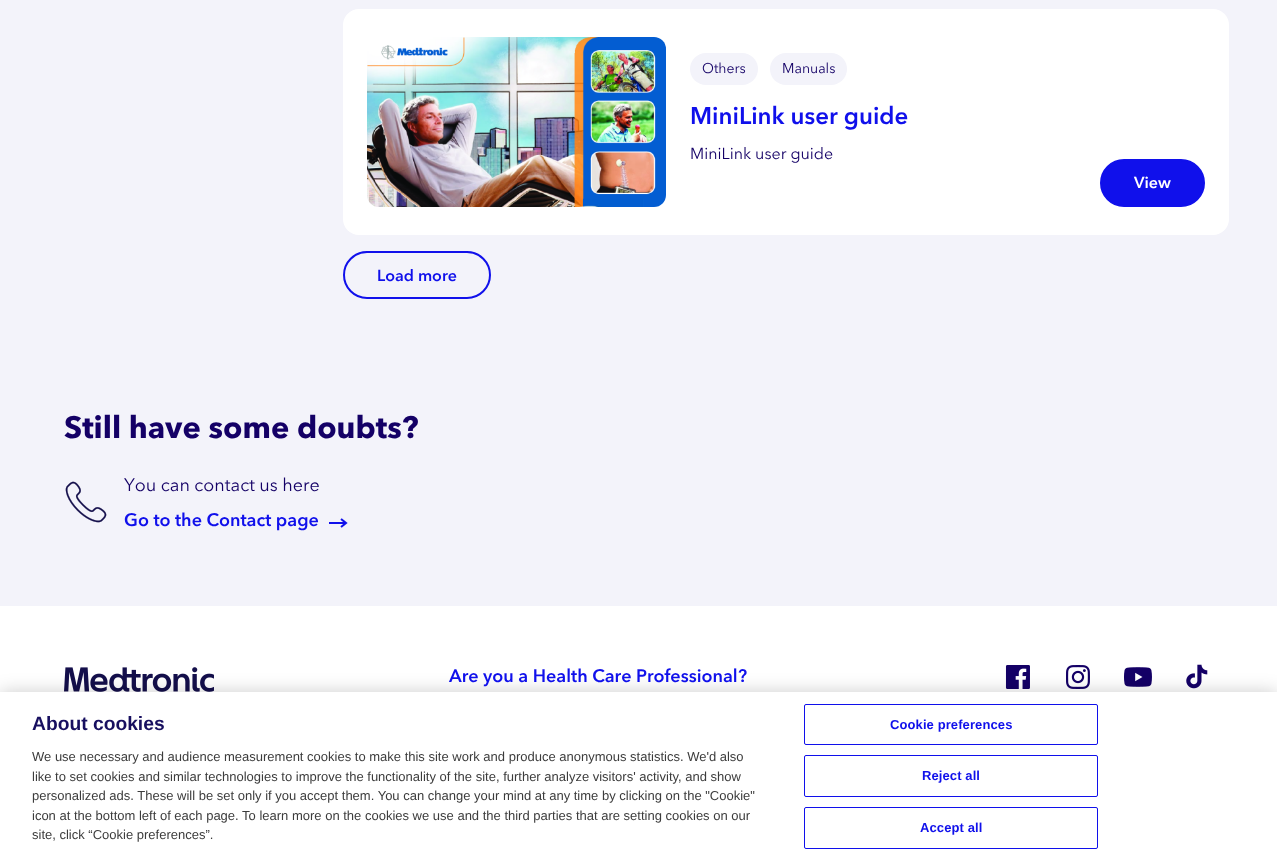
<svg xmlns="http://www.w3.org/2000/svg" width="1277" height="855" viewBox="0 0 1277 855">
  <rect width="100%" height="100%" fill="#fff"/>
  <path d="M0 0h1277v606H0z" fill="#f3f3fa"/>
  <rect x="343" y="9" width="886" height="226" rx="16" fill="#fff"/>
  <image x="367" y="37" width="299" height="170" href="img/1.png"/>
  <rect x="690" y="53" width="68" height="32" rx="16" fill="#f3f3fa"/>
  <rect x="770" y="53" width="77" height="32" rx="16" fill="#f3f3fa"/>
  <rect x="1101" y="160" width="103" height="46" rx="23" fill="#1010eb" stroke="#1010eb" stroke-width="2"/>
  <rect x="344" y="252" width="146" height="46" rx="23" fill="none" stroke="#1010eb" stroke-width="2"/>
  <image x="65" y="481" width="42" height="42" href="img/2.png"/>
  <image x="329" y="518" width="19" height="10" href="img/3.png"/>
  <image x="64" y="667" width="150" height="25" href="img/4.png"/>
  <image x="1005" y="665" width="25" height="24" href="img/5.png"/>
  <image x="1066" y="665" width="24" height="24" href="img/6.png"/>
  <image x="1124" y="667" width="28" height="20" href="img/7.png"/>
  <image x="1186" y="664" width="22" height="25" href="img/8.png"/>
  <path d="M0 692h1277v163H0z" fill="#00000033" filter="blur(9px)"/>
  <path d="M0 692h1277v163H0z" fill="#fff"/>
  <rect x="804.5" y="704.5" width="293" height="40" rx="1.5" fill="none" stroke="#1010eb"/>
  <rect x="804.5" y="755.5" width="293" height="41" rx="1.5" fill="none" stroke="#1010eb"/>
  <rect x="804.5" y="807.5" width="293" height="41" rx="1.5" fill="none" stroke="#1010eb"/>
  <g font-family="'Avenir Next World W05'" font-size="14" fill="#140066">
    <text x="702" y="73">Others</text>
    <text x="782" y="73">Manuals</text>
  </g>
  <text x="690" y="124" font-family="'Avenir Next World W05'" font-size="24" font-weight="600" fill="#1010eb">MiniLink user guide</text>
  <text x="690" y="159" font-family="'Avenir Next World W05'" font-size="16" fill="#140066">MiniLink user guide</text>
  <text x="1134" y="188" font-family="'Avenir Next World W05'" font-size="16" font-weight="600" fill="#fff">View</text>
  <text x="377" y="281" font-family="'Avenir Next World W05'" font-size="16" font-weight="600" fill="#1010eb">Load more</text>
  <text x="64" y="438" font-family="'Avenir Next World W05'" font-size="30.75" font-weight="bold" fill="#140066">Still have some doubts?</text>
  <text x="124" y="491" font-family="'Avenir Next World W05'" font-size="18" fill="#140066">You can contact us here</text>
  <g font-family="'Avenir Next World W05'" font-size="18" font-weight="600" fill="#1010eb">
    <text x="124" y="526">Go to the Contact page</text>
    <text x="449" y="682">Are you a Health Care Professional?</text>
  </g>
  <text x="32" y="730" font-family="Liberation Sans" font-size="19.25" font-weight="bold" fill="#170f5f">About cookies</text>
  <g font-family="Liberation Sans" font-size="13" fill="#3c3c3c">
    <text x="32" y="761">We use necessary and audience measurement cookies to make this site work and produce anonymous statistics. We'd also</text>
    <text x="32" y="781">like to set cookies and similar technologies to improve the functionality of the site, further analyze visitors' activity, and show</text>
    <text x="32" y="800">personalized ads. These will be set only if you accept them. You can change your mind at any time by clicking on the "Cookie"</text>
    <text x="32" y="820">icon at the bottom left of each page. To learn more on the cookies we use and the third parties that are setting cookies on our</text>
    <text x="32" y="839">site, click “Cookie preferences”.</text>
  </g>
  <g font-family="Liberation Sans" font-size="13" font-weight="bold" letter-spacing="0.1" fill="#1010eb">
    <text x="890" y="729">Cookie preferences</text>
    <text x="922" y="780">Reject all</text>
    <text x="920" y="832">Accept all</text>
  </g>
</svg>
